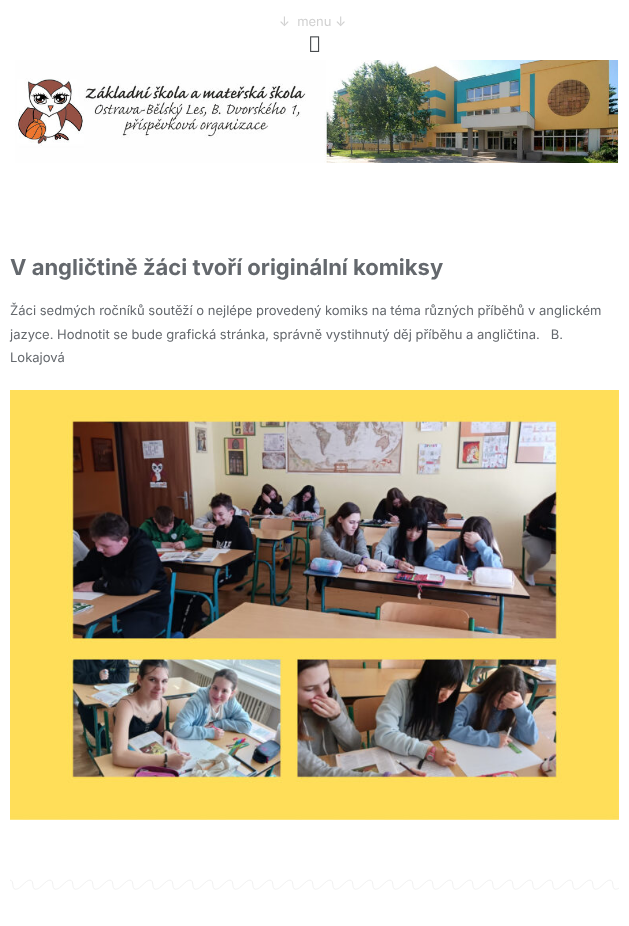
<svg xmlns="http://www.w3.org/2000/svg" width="629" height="926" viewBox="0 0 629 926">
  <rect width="100%" height="100%" fill="#fff"/>
  <image x="310" y="36" width="10" height="16" href="img/1.png"/>
  <image x="15" y="60" width="604" height="103" href="img/2.png"/>
  <image x="10" y="390" width="609" height="430" href="img/3.png"/>
  <image x="10" y="879" width="609" height="11" href="img/4.png"/>
  <text x="279" y="26" font-family="Inter" font-size="13" fill="#d1d1d1" xml:space="preserve">↓  menu ↓</text>
  <text x="10" y="275" font-family="Inter" font-size="22" font-weight="bold" fill="#64686d">V angličtině žáci tvoří originální komiksy</text>
  <g font-family="Inter" font-size="13" fill="#64686d">
    <text x="10" y="315">Žáci sedmých ročníků soutěží o nejlépe provedený komiks na téma různých příběhů v anglickém</text>
    <text x="10" y="339" xml:space="preserve">jazyce. Hodnotit se bude grafická stránka, správně vystihnutý děj příběhu a angličtina.   B.</text>
    <text x="10" y="362">Lokajová</text>
  </g>
</svg>
